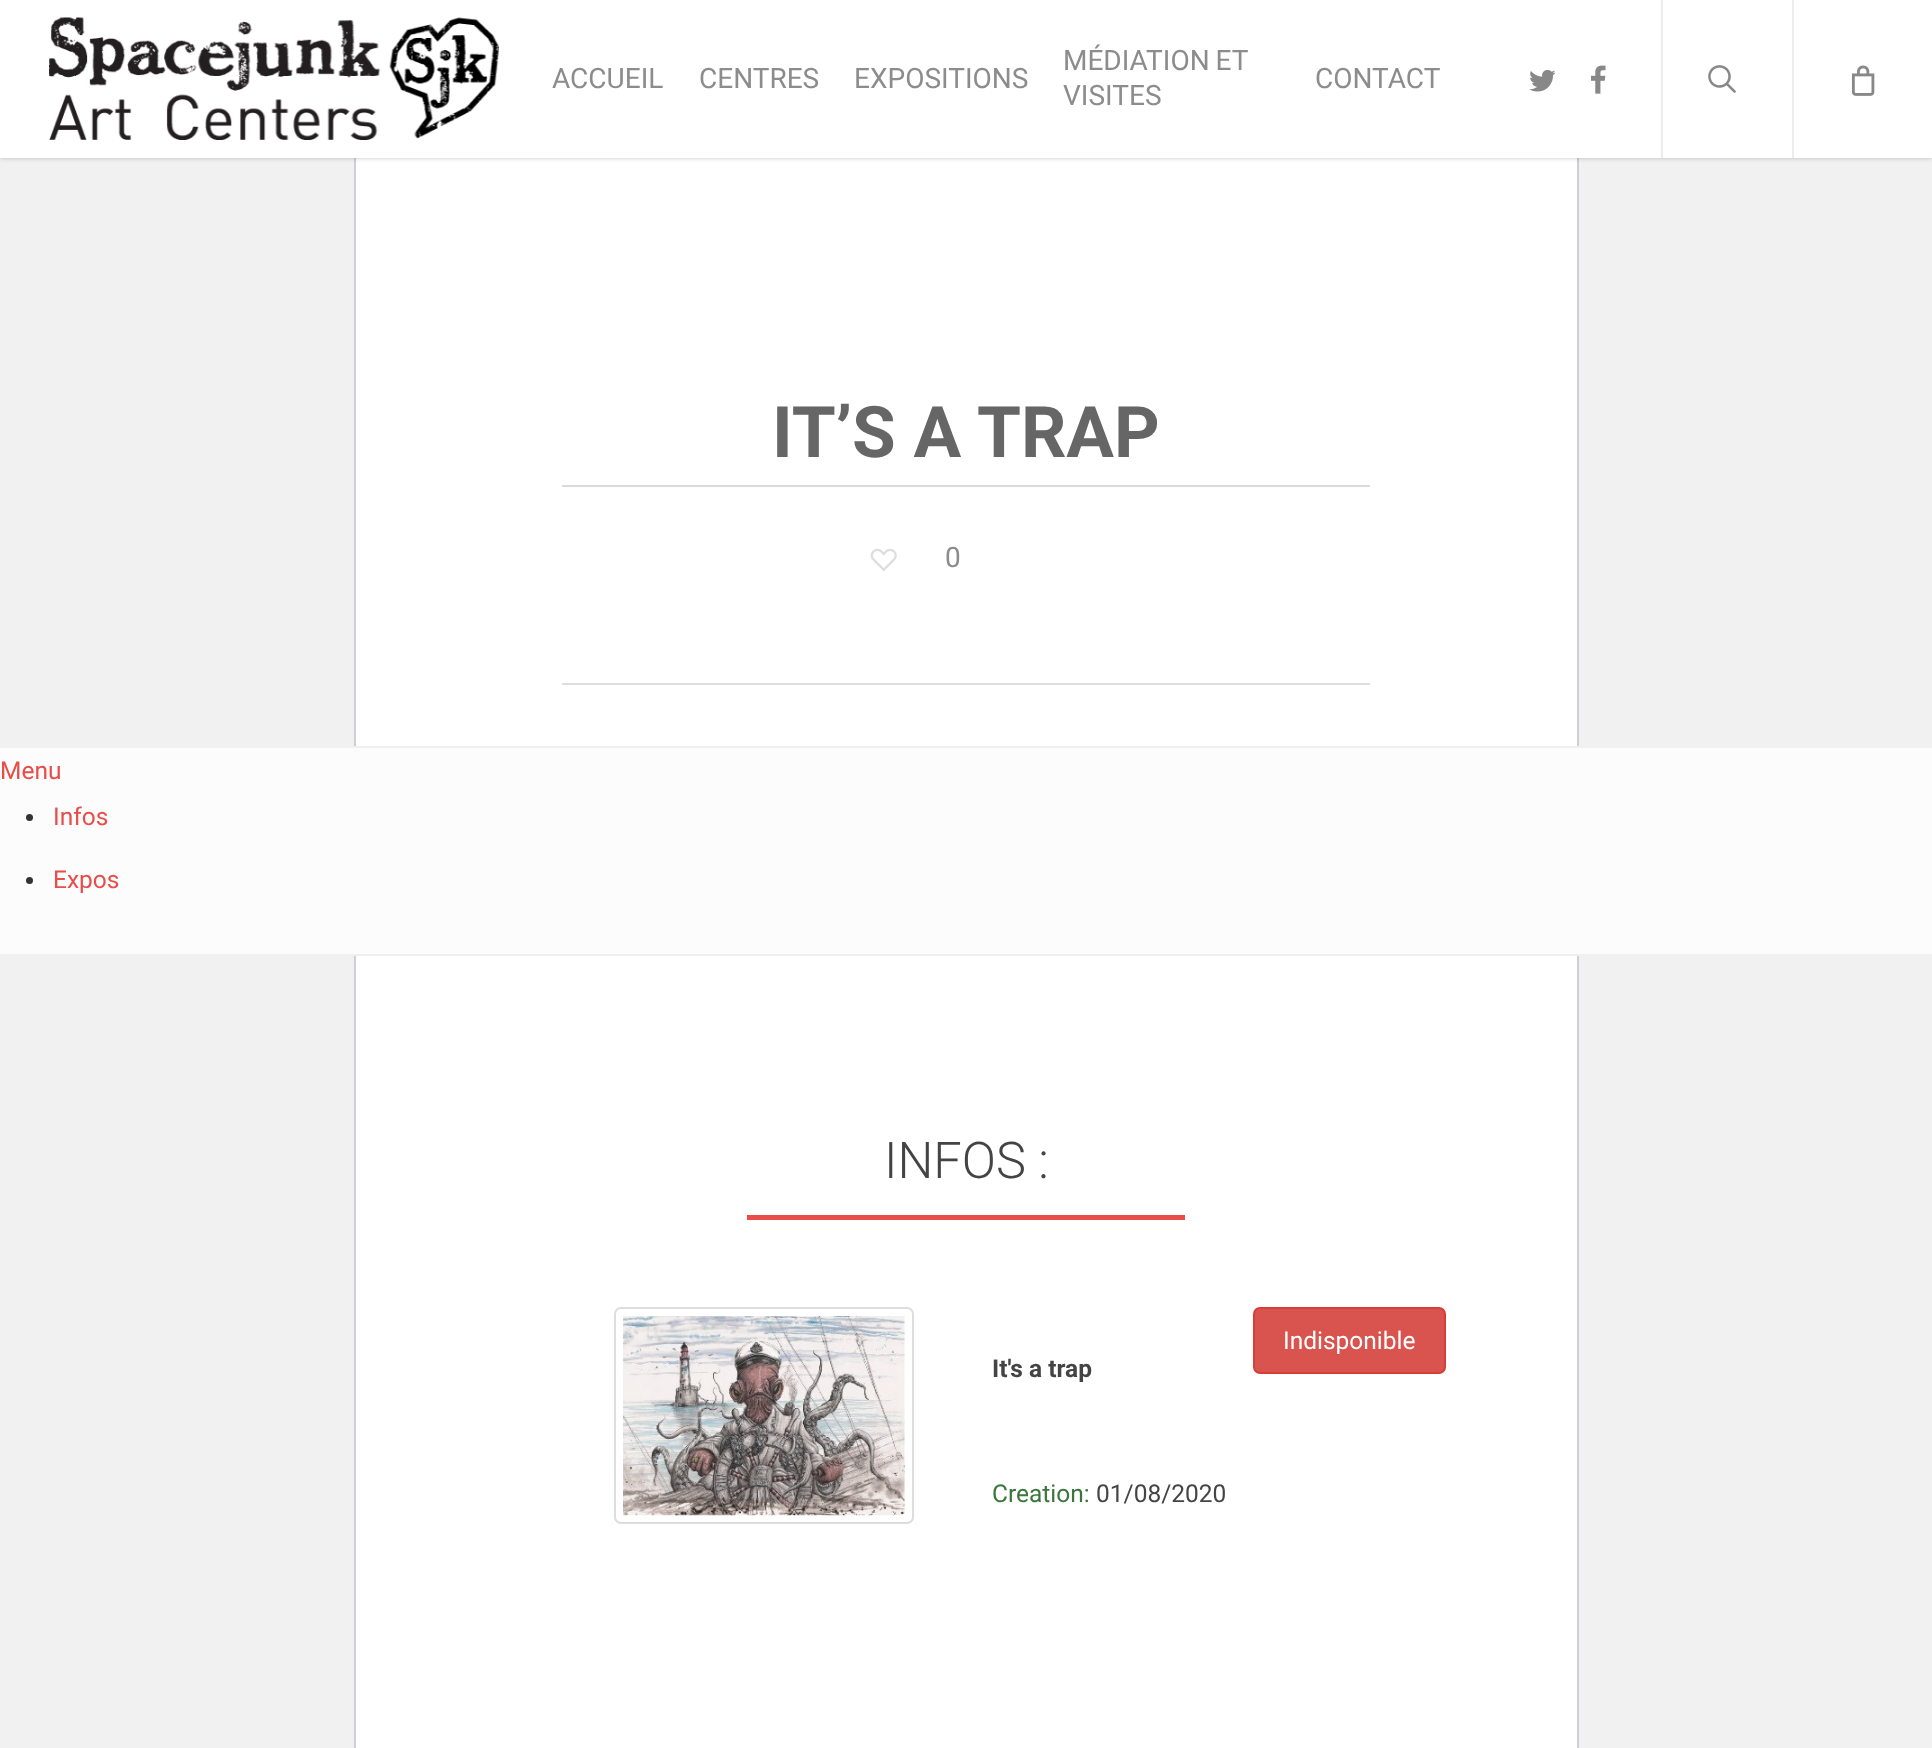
<svg xmlns="http://www.w3.org/2000/svg" width="1932" height="1748" viewBox="0 0 1932 1748">
  <rect width="100%" height="100%" fill="#f1f1f1"/>
  <path d="M356 158h1221v1590H356z" fill="#fff"/>
  <path d="M355 89h1223v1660H355z" fill="none" stroke="#ccd0d4" stroke-width="2"/>
  <path d="M0 0h1932v158H0z" fill="#00000038" filter="blur(2.5px)"/>
  <path d="M0 0h1932v158H0z" fill="#fff"/>
  <image x="49" y="17" width="450" height="123" href="img/1.png"/>
  <image x="1529" y="69" width="27" height="23" href="img/2.png"/>
  <image x="1591" y="65" width="15" height="29" href="img/3.png"/>
  <path d="M1661 0h2v158H1661z" fill="#ededed"/>
  <image x="1708" y="65" width="28" height="28" href="img/4.png"/>
  <path d="M1792 0h2v158H1792z" fill="#ededed"/>
  <image x="1851" y="65" width="24" height="31" href="img/5.png"/>
  <path d="M562 683h808v2H562z" fill="#ddd"/>
  <path d="M562 485h808v2H562z" fill="#dadada"/>
  <image x="870" y="548" width="27" height="24" href="img/6.png"/>
  <path d="M0 748h1932v206H0z" fill="#fcfcfc"/>
  <path d="M354 746h1225v2H354z" fill="#efefef"/>
  <path d="M354 954h1225v2H354z" fill="#efefef"/>
  <circle cx="29.5" cy="817.5" r="3.5" fill="#333"/>
  <circle cx="29.5" cy="880.5" r="3.5" fill="#333"/>
  <path d="M747 1215h438v5H747z" fill="#e84d49"/>
  <rect x="615" y="1308" width="298" height="215" rx="6" fill="none" stroke="#ddd" stroke-width="2"/>
  <image x="623" y="1316" width="282" height="200" href="img/7.png"/>
  <rect x="1254" y="1308" width="191" height="65" rx="6" fill="#d9534f" stroke="#d43f3a" stroke-width="2"/>
  <g font-family="Roboto" font-size="28" fill="#8c8c8c">
    <text x="552" y="88">ACCUEIL</text>
    <text x="699" y="88">CENTRES</text>
    <text x="854" y="88">EXPOSITIONS</text>
    <text x="1063" y="70" word-spacing="-1">MÉDIATION ET</text>
    <text x="1063" y="105">VISITES</text>
    <text x="1315" y="88">CONTACT</text>
  </g>
  <text x="772" y="457" font-family="Roboto" font-size="71" font-weight="bold" fill="#666">IT’S A TRAP</text>
  <text x="945" y="567" font-family="Roboto" font-size="28" fill="#8c8c8c">0</text>
  <g font-family="Roboto" font-size="24.5" fill="#e84d49">
    <text x="0" y="779">Menu</text>
    <text x="53" y="825">Infos</text>
    <text x="53" y="888">Expos</text>
  </g>
  <text x="884" y="1178" font-family="Roboto" font-size="50.5" font-weight="300" fill="#444">INFOS :</text>
  <text x="1283" y="1349" font-family="Roboto" font-size="24.5" fill="#fff">Indisponible</text>
  <text x="992" y="1377" font-family="Roboto" font-size="24.5" font-weight="bold" fill="#444">It's a trap</text>
  <text x="992" y="1502" font-family="Roboto" font-size="24.5" fill="#3c763d">Creation:</text>
  <text x="1096" y="1502" font-family="Roboto" font-size="24.5" fill="#444">01/08/2020</text>
</svg>
